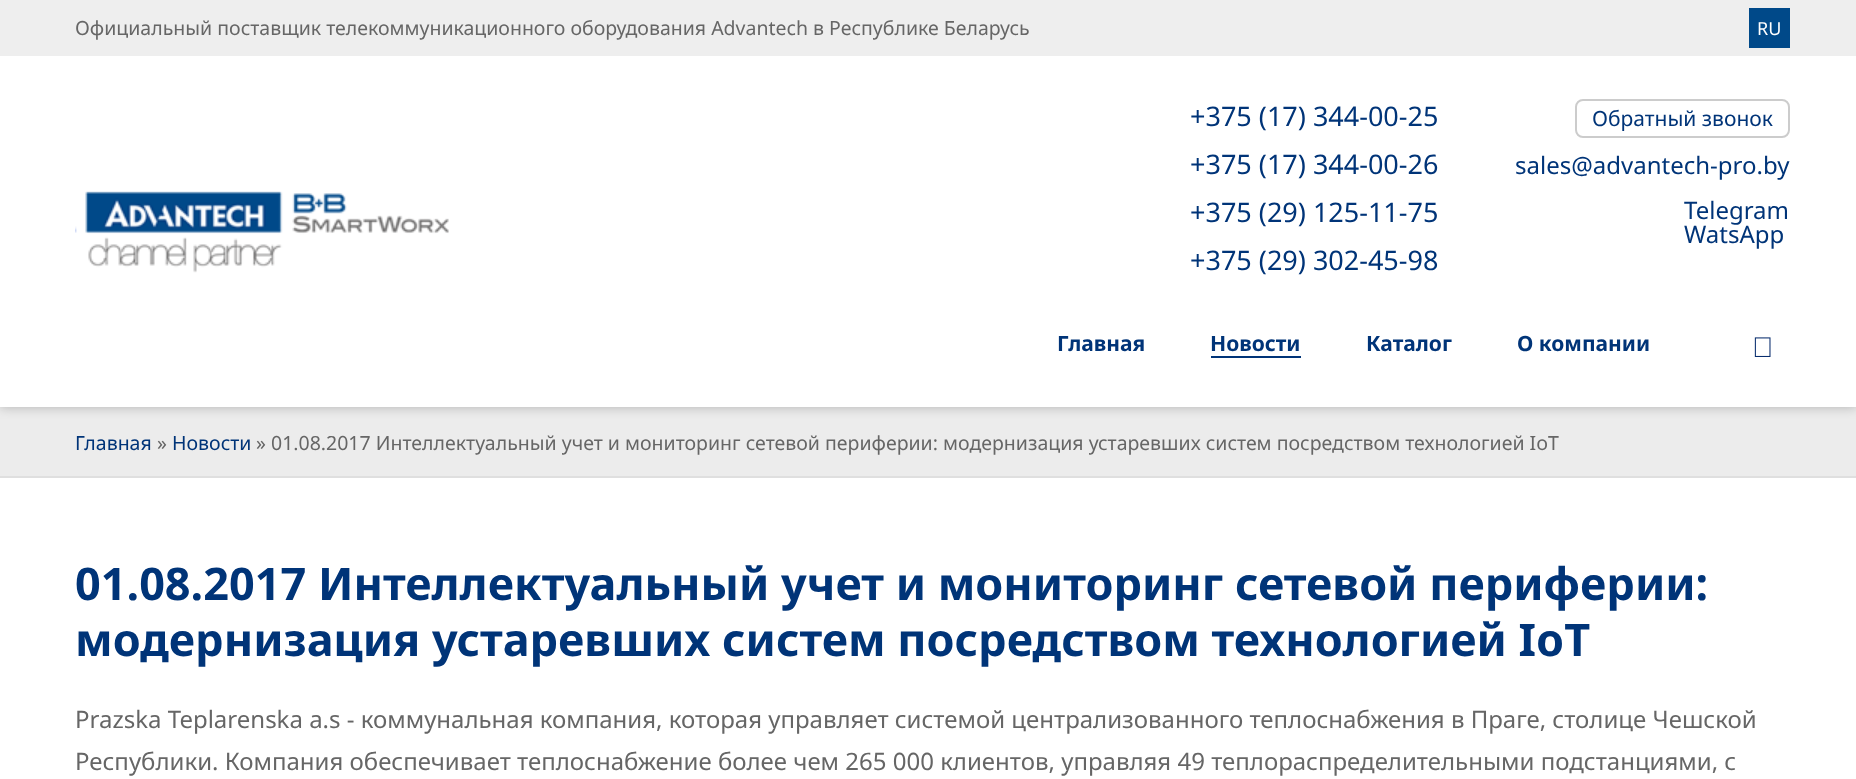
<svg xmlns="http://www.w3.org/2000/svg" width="1856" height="779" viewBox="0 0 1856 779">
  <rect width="100%" height="100%" fill="#fff"/>
  <path d="M0 407h1856v69H0z" fill="#ececec"/>
  <path d="M0 0h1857v407H0z" fill="#00000040" filter="blur(6px)"/>
  <path d="M0 56h1856v351H0z" fill="#fff"/>
  <path d="M0 0h1856v56H0z" fill="#eee"/>
  <path d="M1749 8h41v40H1749z" fill="#004989"/>
  <image x="75" y="191" width="374" height="82" href="img/1.png"/>
  <rect x="1576" y="100" width="213" height="37" rx="7" fill="none" stroke="#ccc" stroke-width="2"/>
  <path d="M1211 356h90v2H1211z" fill="#003478"/>
  <image x="1754" y="337" width="17" height="20" href="img/2.png"/>
  <path d="M0 476h1856v2H0z" fill="#dfdfdf"/>
  <text x="75" y="35" font-family="Noto Sans" font-size="19.5" fill="#666">Официальный поставщик телекоммуникационного оборудования Advantech в Республике Беларусь</text>
  <text x="1757" y="35" font-family="Noto Sans" font-size="18" fill="#fff">RU</text>
  <g font-family="Noto Sans" font-size="27" fill="#003478">
    <text x="1190" y="126">+375 (17) 344-00-25</text>
    <text x="1190" y="174">+375 (17) 344-00-26</text>
    <text x="1190" y="222">+375 (29) 125-11-75</text>
    <text x="1190" y="270">+375 (29) 302-45-98</text>
  </g>
  <text x="1592" y="126" font-family="Noto Sans" font-size="21" fill="#003478">Обратный звонок</text>
  <g font-family="Noto Sans" font-size="24" fill="#003478">
    <text x="1515" y="174">sales@advantech-pro.by</text>
    <text x="1684" y="219">Telegram</text>
    <text x="1684" y="243">WatsApp</text>
  </g>
  <g font-family="Noto Sans" font-size="21" font-weight="bold" fill="#003478">
    <text x="1057" y="351">Главная</text>
    <text x="1210" y="351">Новости</text>
    <text x="1366" y="351">Каталог</text>
    <text x="1517" y="351">О компании</text>
  </g>
  <text x="75" y="450" font-family="Noto Sans" font-size="19.5" fill="#003478">Главная</text>
  <text x="157" y="450" font-family="Noto Sans" font-size="19.5" fill="#666">»</text>
  <text x="172" y="450" font-family="Noto Sans" font-size="19.5" fill="#003478">Новости</text>
  <text x="256" y="450" font-family="Noto Sans" font-size="19.5" fill="#666">» 01.08.2017 Интеллектуальный учет и мониторинг сетевой периферии: модернизация устаревших систем посредством технологией IoT</text>
  <g font-family="Noto Sans" font-size="45" font-weight="bold" fill="#003478">
    <text x="75" y="600">01.08.2017 Интеллектуальный учет и мониторинг сетевой периферии:</text>
    <text x="75" y="656">модернизация устаревших систем посредством технологией IoT</text>
  </g>
  <g font-family="Noto Sans" font-size="24" fill="#666">
    <text x="75" y="728">Prazska Teplarenska a.s - коммунальная компания, которая управляет системой централизованного теплоснабжения в Праге, столице Чешской</text>
    <text x="75" y="770">Республики. Компания обеспечивает теплоснабжение более чем 265 000 клиентов, управляя 49 теплораспределительными подстанциями, с</text>
  </g>
</svg>
